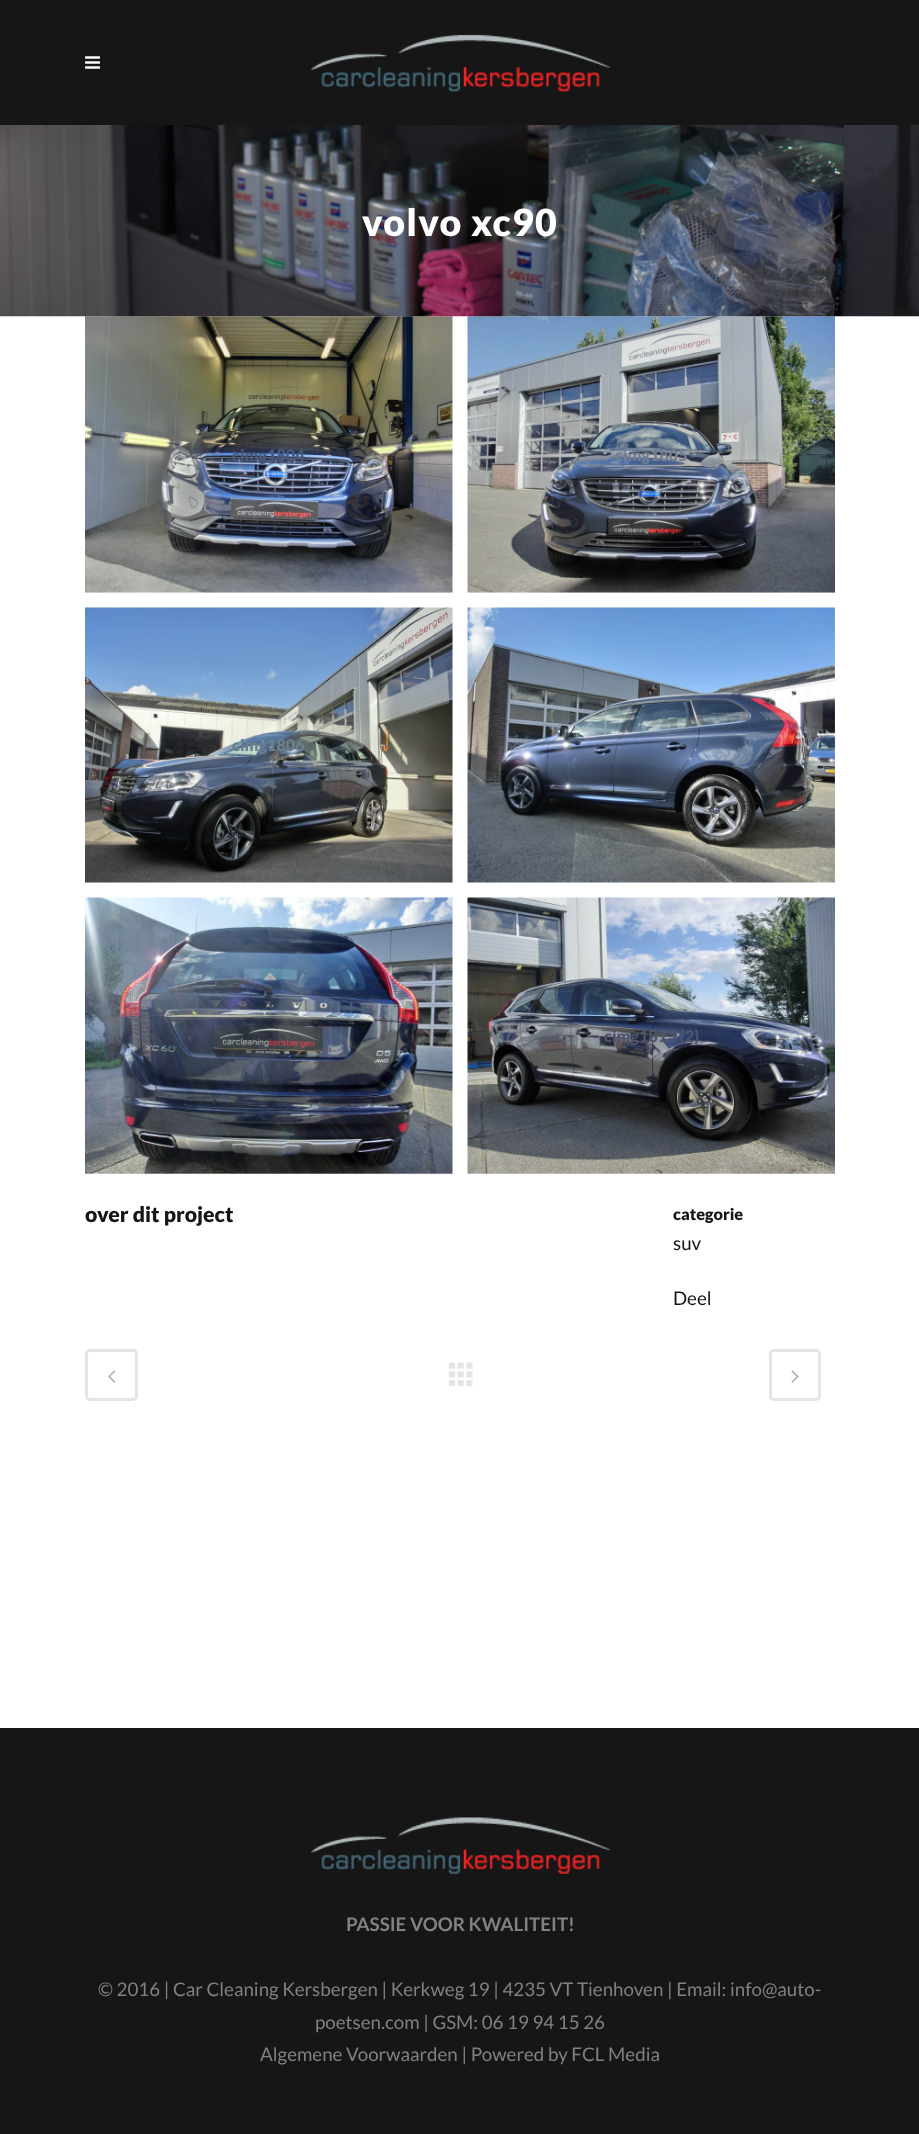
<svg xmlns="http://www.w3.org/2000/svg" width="919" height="2134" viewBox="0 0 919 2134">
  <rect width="100%" height="100%" fill="#fff"/>
  <path d="M0 0h919v125H0z" fill="#161616"/>
  <image x="85" y="56" width="15" height="13" href="img/1.png"/>
  <image x="311" y="34" width="299" height="58" href="img/2.png"/>
  <image x="85" y="316" width="368" height="277" href="img/4.png"/>
  <image x="467" y="316" width="368" height="277" href="img/5.png"/>
  <image x="0" y="125" width="919" height="192" href="img/3.png"/>
  <image x="85" y="607" width="368" height="276" href="img/6.png"/>
  <image x="467" y="607" width="368" height="276" href="img/7.png"/>
  <image x="85" y="897" width="368" height="277" href="img/8.png"/>
  <image x="467" y="897" width="368" height="277" href="img/9.png"/>
  <rect x="86.5" y="1350.5" width="50" height="49" rx="3.5" fill="none" stroke="#e5e5e5" stroke-width="3"/>
  <image x="108" y="1370" width="8" height="13" href="img/10.png"/>
  <image x="448" y="1362" width="25" height="25" href="img/11.png"/>
  <rect x="770.5" y="1350.5" width="49" height="49" rx="3.5" fill="none" stroke="#e5e5e5" stroke-width="3"/>
  <image x="791" y="1370" width="8" height="13" href="img/12.png"/>
  <path d="M0 1728h919v406H0z" fill="#161616"/>
  <image x="311" y="1817" width="299" height="57" href="img/13.png"/>
  <text x="362" y="236" font-family="Lato" font-size="37.5" font-weight="900" letter-spacing="1.25" fill="#fff">volvo xc90</text>
  <text x="232" y="461" font-family="Lato" font-size="16.25" font-weight="900" fill="#47597d">cimg1804</text>
  <text x="615" y="461" font-family="Lato" font-size="16.25" font-weight="900" fill="#727e92">cimg1805</text>
  <text x="232" y="751" font-family="Lato" font-size="16.25" font-weight="900" fill="#6b7f8d">cimg1806</text>
  <text x="604" y="1042" font-family="Lato" font-size="16.25" font-weight="900" fill="#4e556a">cimg1813 (2)</text>
  <text x="85" y="1222" font-family="Lato" font-size="21.25" font-weight="900" fill="#161616">over dit project</text>
  <text x="673" y="1220" font-family="Lato" font-size="16.25" font-weight="900" fill="#161616">categorie</text>
  <g font-family="Lato" font-size="18.75" fill="#161616">
    <text x="673" y="1250">suv</text>
    <text x="673" y="1305">Deel</text>
  </g>
  <text x="346" y="1931" font-family="Lato" font-size="18.75" font-weight="bold" fill="#818181">PASSIE VOOR KWALITEIT!</text>
  <g font-family="Lato" font-size="18.75" fill="#818181">
    <text x="98" y="1996">© 2016 | Car Cleaning Kersbergen | Kerkweg 19 | 4235 VT Tienhoven | Email: info@auto-</text>
    <text x="315" y="2029">poetsen.com | GSM: 06 19 94 15 26</text>
    <text x="260" y="2061">Algemene Voorwaarden | Powered by FCL Media</text>
  </g>
</svg>
